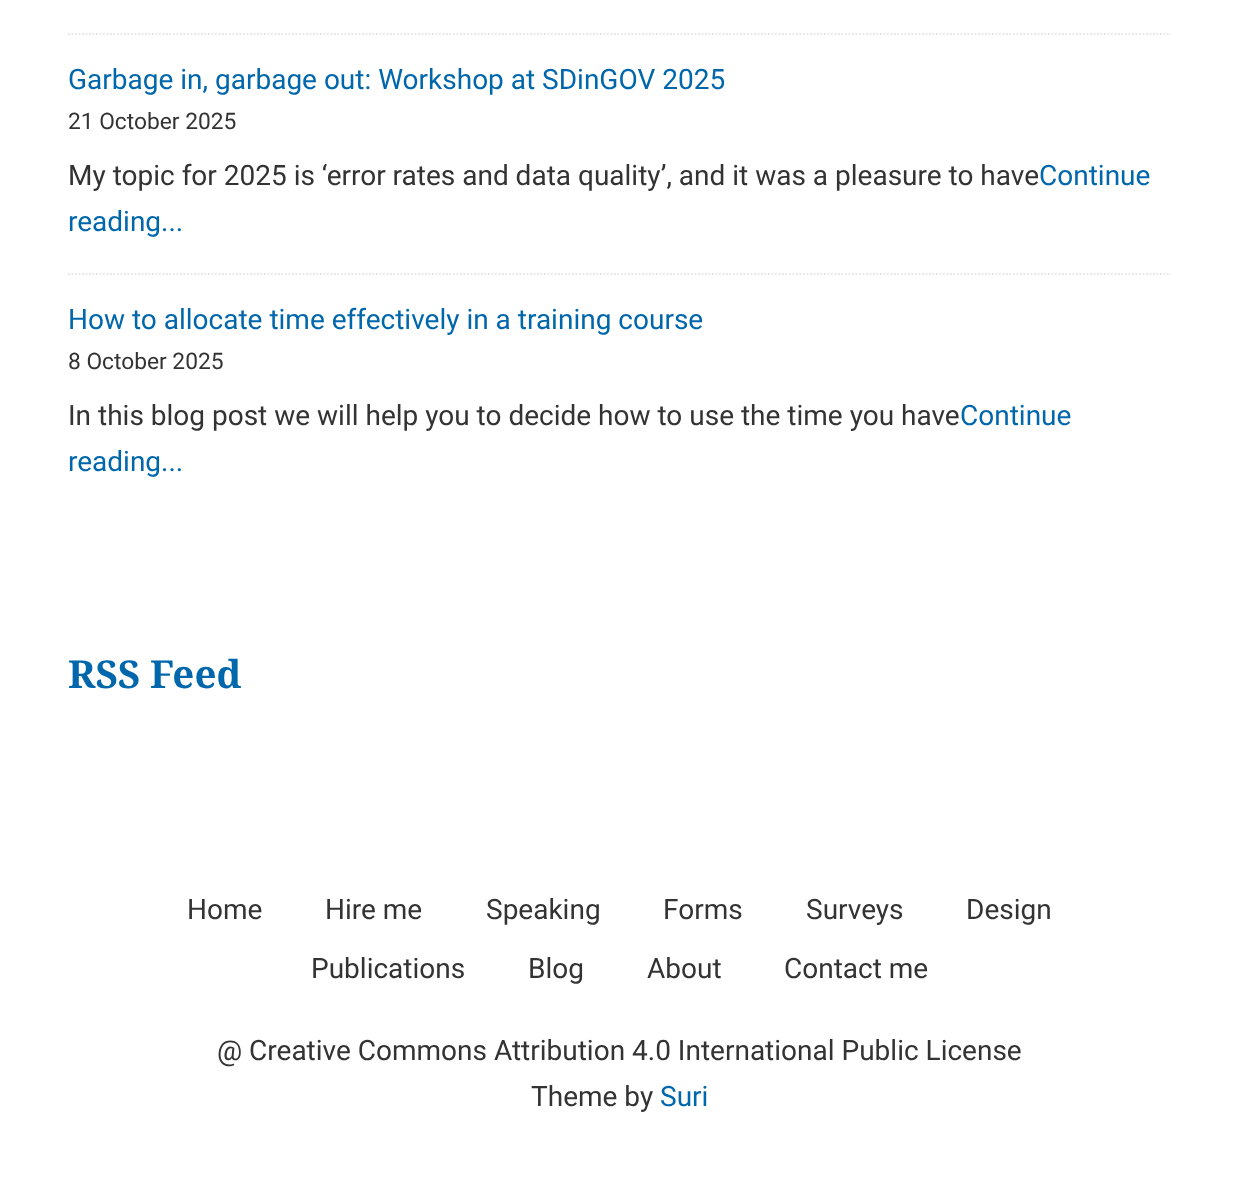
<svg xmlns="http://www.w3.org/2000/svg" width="1239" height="1198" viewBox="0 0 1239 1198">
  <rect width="100%" height="100%" fill="#fff"/>
  <path d="M68 34H1171" fill="none" stroke="#e6e6e6" stroke-width="1.8" stroke-dasharray="1.75 1.75"/>
  <path d="M68 274H1171" fill="none" stroke="#e6e6e6" stroke-width="1.8" stroke-dasharray="1.75 1.75"/>
  <text x="68" y="89" font-family="Roboto" font-size="28" fill="#0067ac">Garbage in, garbage out: Workshop at SDinGOV 2025</text>
  <text x="68" y="129" font-family="Roboto" font-size="22.75" fill="#333">21 October 2025</text>
  <text x="68" y="185" font-family="Roboto" font-size="28" fill="#333">My topic for 2025 is ‘error rates and data quality’, and it was a pleasure to have</text>
  <g font-family="Roboto" font-size="28" fill="#0067ac">
    <text x="1039" y="185">Continue</text>
    <text x="68" y="231">reading...</text>
    <text x="68" y="329">How to allocate time effectively in a training course</text>
  </g>
  <text x="68" y="369" font-family="Roboto" font-size="22.75" fill="#333">8 October 2025</text>
  <text x="68" y="425" font-family="Roboto" font-size="28" fill="#333">In this blog post we will help you to decide how to use the time you have</text>
  <g font-family="Roboto" font-size="28" fill="#0067ac">
    <text x="960" y="425">Continue</text>
    <text x="68" y="471">reading...</text>
  </g>
  <text x="68" y="688" font-family="Noto Serif" font-size="38.5" font-weight="bold" fill="#0067ac">RSS Feed</text>
  <g font-family="Roboto" font-size="28" fill="#333">
    <text x="187" y="919">Home</text>
    <text x="325" y="919">Hire me</text>
    <text x="486" y="919">Speaking</text>
    <text x="663" y="919">Forms</text>
    <text x="806" y="919">Surveys</text>
    <text x="966" y="919">Design</text>
    <text x="311" y="978">Publications</text>
    <text x="528" y="978">Blog</text>
    <text x="647" y="978">About</text>
    <text x="784" y="978">Contact me</text>
    <text x="217" y="1060">@ Creative Commons Attribution 4.0 International Public License</text>
    <text x="531" y="1106">Theme by</text>
  </g>
  <text x="660" y="1106" font-family="Roboto" font-size="28" fill="#0067ac">Suri</text>
</svg>
